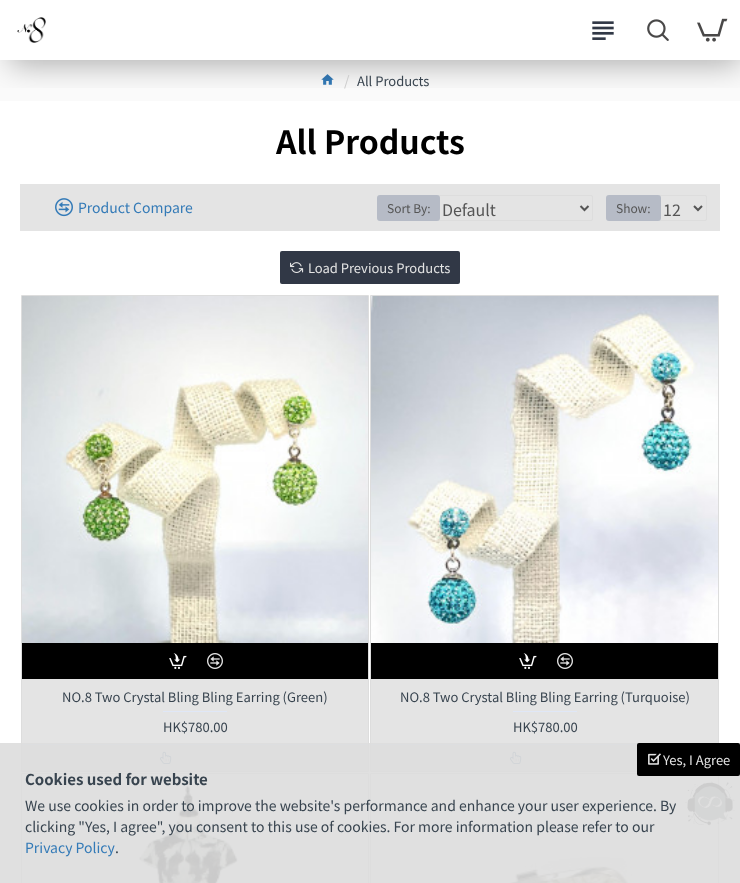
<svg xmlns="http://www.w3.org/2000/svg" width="740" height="883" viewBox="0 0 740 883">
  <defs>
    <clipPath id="clip1"><path d="M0 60h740v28H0z"/></clipPath>
  </defs>
  <rect width="100%" height="100%" fill="#fff"/>
  <path d="M0 60h740v41H0z" fill="#fafafa"/>
  <image x="321" y="74" width="13" height="11" href="img/5.png"/>
  <g clip-path="url(#clip1)">
    <path d="M10 15h730v50H10z" fill="#0000004d" filter="blur(15px)"/>
  </g>
  <image x="17" y="17" width="29" height="26" href="img/1.png"/>
  <image x="592" y="21" width="22" height="19" href="img/2.png"/>
  <image x="647" y="19" width="22" height="22" href="img/3.png"/>
  <image x="697" y="18" width="31" height="24" href="img/4.png"/>
  <path d="M20 184h700v47H20z" fill="#e4e4e4"/>
  <image x="55" y="198" width="18" height="19" href="img/6.png"/>
  <rect x="437.5" y="195.5" width="155" height="25" rx="1.5" fill="none" stroke="#ddd"/>
  <rect x="377" y="195" width="63" height="26" rx="3" fill="#b6bbc6"/>
  <path d="M580.5 206L584.5 210L588.5 206" fill="none" stroke="#555" stroke-width="2"/>
  <rect x="658.5" y="195.5" width="48" height="25" rx="1.5" fill="none" stroke="#ddd"/>
  <rect x="606" y="195" width="55" height="26" rx="3" fill="#b6bbc6"/>
  <path d="M694 206L698 210L702 206" fill="none" stroke="#555" stroke-width="2"/>
  <rect x="280" y="251" width="180" height="33" rx="2" fill="#313846"/>
  <image x="290" y="262" width="14" height="11" href="img/7.png"/>
  <path d="M22 679h346v92H22z" fill="#e4e4e4"/>
  <path d="M21.5 295.5h347v476H21.5z" fill="none" stroke="#ddd"/>
  <image x="22" y="296" width="346" height="347" href="img/8.png"/>
  <path d="M22 643h346v36H22z" fill="#000"/>
  <image x="169" y="653" width="18" height="16" href="img/9.png"/>
  <image x="207" y="653" width="16" height="16" href="img/10.png"/>
  <path d="M163 711h64v1H163z" fill="#dfe7f7"/>
  <path d="M22 744h346v1H22z" fill="#dfe7f7"/>
  <image x="160" y="751" width="12" height="13" href="img/11.png"/>
  <path d="M371 679h347v92H371z" fill="#e4e4e4"/>
  <path d="M370.5 295.5h348v476H370.5z" fill="none" stroke="#ddd"/>
  <image x="371" y="296" width="347" height="347" href="img/12.png"/>
  <path d="M371 643h347v36H371z" fill="#000"/>
  <image x="519" y="653" width="18" height="16" href="img/9.png"/>
  <image x="557" y="653" width="16" height="16" href="img/10.png"/>
  <path d="M513 711h64v1H513z" fill="#dfe7f7"/>
  <path d="M371 744h267v1H371z" fill="#dfe7f7"/>
  <image x="510" y="751" width="12" height="13" href="img/11.png"/>
  <path d="M21.5 773.5h347v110H21.5z" fill="none" stroke="#ddd"/>
  <image x="22" y="774" width="346" height="109" href="img/13.png"/>
  <path d="M370.5 773.5h348v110H370.5z" fill="none" stroke="#ddd"/>
  <image x="371" y="774" width="347" height="109" href="img/14.png"/>
  <image x="685" y="781" width="50" height="45" href="img/16.png"/>
  <path d="M0 743h740v140H0z" fill="#dddddde6"/>
  <rect x="637" y="743" width="103" height="33" rx="2" fill="#000"/>
  <image x="648" y="753" width="13" height="12" href="img/15.png"/>
  <text x="344" y="86" font-family="Noto Sans HK" font-size="14" fill="#ccc">/</text>
  <text x="357" y="86" font-family="Noto Sans HK" font-size="13" fill="#38444f">All Products</text>
  <text x="276" y="154" font-family="Noto Sans HK" font-size="32" font-weight="bold" fill="#000">All Products</text>
  <text x="78" y="213" font-family="Noto Sans HK" font-size="14" fill="#337ab7">Product Compare</text>
  <text x="387" y="213" font-family="Noto Sans HK" font-size="12" fill="#555">Sort By:</text>
  <text x="442" y="216" font-family="Noto Sans HK" font-size="16" fill="#555">Default</text>
  <text x="616" y="213" font-family="Noto Sans HK" font-size="12" fill="#555">Show:</text>
  <text x="663" y="216" font-family="Noto Sans HK" font-size="16" fill="#555">12</text>
  <text x="308" y="273" font-family="Noto Sans HK" font-size="13" fill="#e4e4e4">Load Previous Products</text>
  <g font-family="Noto Sans HK" font-size="13" fill="#38444f">
    <text x="62" y="702">NO.8 Two Crystal Bling Bling Earring (Green)</text>
    <text x="163" y="732">HK$780.00</text>
    <text x="400" y="702">NO.8 Two Crystal Bling Bling Earring (Turquoise)</text>
    <text x="513" y="732">HK$780.00</text>
  </g>
  <text x="663" y="765" font-family="Noto Sans HK" font-size="13" fill="#e4e4e4">Yes, I Agree</text>
  <text x="25" y="785" font-family="Noto Sans HK" font-size="15" font-weight="bold" fill="#38444f">Cookies used for website</text>
  <g font-family="Noto Sans HK" font-size="14" fill="#38444f">
    <text x="25" y="811">We use cookies in order to improve the website's performance and enhance your user experience. By</text>
    <text x="25" y="832">clicking "Yes, I agree", you consent to this use of cookies. For more information please refer to our</text>
  </g>
  <text x="25" y="853" font-family="Noto Sans HK" font-size="14" fill="#337ab7">Privacy Policy</text>
  <text x="115" y="853" font-family="Noto Sans HK" font-size="14" fill="#38444f">.</text>
</svg>
